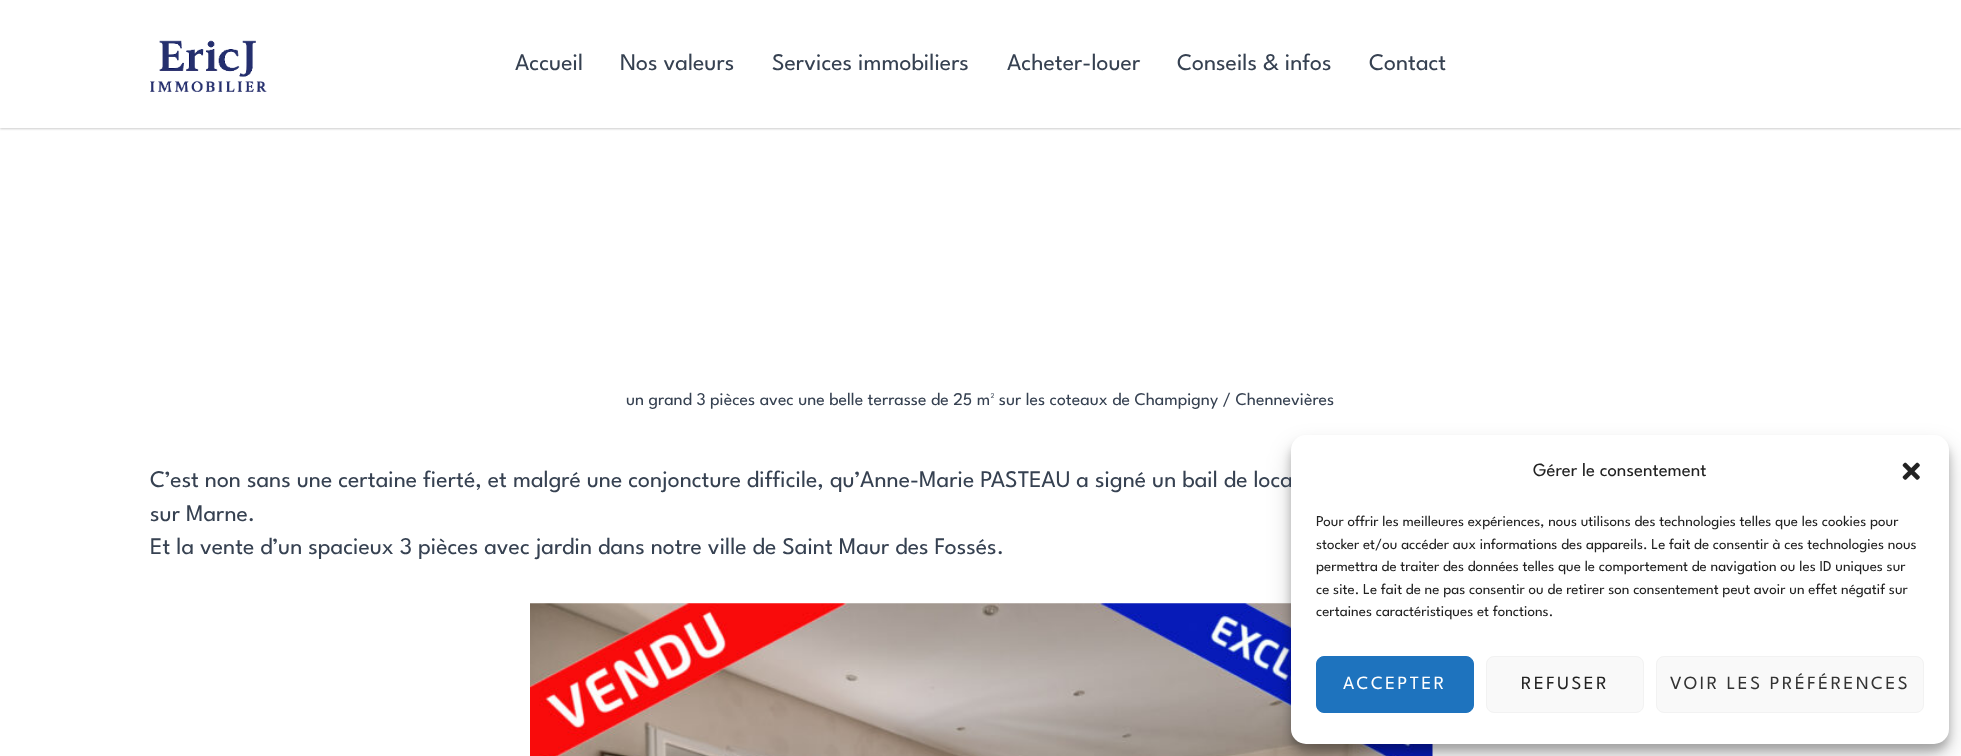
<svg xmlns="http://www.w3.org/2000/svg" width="1961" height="756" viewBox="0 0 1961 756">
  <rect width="100%" height="100%" fill="#fff"/>
  <path d="M0 -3h1961v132H0z" fill="#00000033" filter="blur(1px)"/>
  <path d="M0 0h1961v128H0z" fill="#fff"/>
  <image x="150" y="40" width="117" height="52" href="img/1.png"/>
  <image x="530" y="603" width="903" height="153" href="img/2.png"/>
  <rect x="1291" y="443" width="658" height="308" rx="15" fill="#0000003b" filter="blur(4px)"/>
  <rect x="1291" y="448" width="658" height="308" rx="15" fill="#00000030" filter="blur(12.5px)"/>
  <g font-family="League Spartan" font-size="23.75" fill="#364151">
    <text x="515" y="70">Accueil</text>
    <text x="620" y="70">Nos valeurs</text>
    <text x="772" y="70">Services immobiliers</text>
    <text x="1007" y="70">Acheter-louer</text>
    <text x="1177" y="70">Conseils &amp; infos</text>
    <text x="1369" y="70">Contact</text>
  </g>
  <text x="626" y="405" font-family="League Spartan" font-size="17.8" fill="#364151">un grand 3 pièces avec une belle terrasse de 25 m² sur les coteaux de Champigny / Chennevières</text>
  <g font-family="League Spartan" font-size="23.75" fill="#364151">
    <text x="150" y="487">C’est non sans une certaine fierté, et malgré une conjoncture difficile, qu’Anne-Marie PASTEAU a signé un bail de loca</text>
    <text x="150" y="521">sur Marne.</text>
    <text x="150" y="554">Et la vente d’un spacieux 3 pièces avec jardin dans notre ville de Saint Maur des Fossés.</text>
  </g>
  <rect x="1291" y="435" width="658" height="309" rx="15" fill="#fff"/>
  <text x="1533" y="476" font-family="League Spartan" font-size="18.75" fill="#222">Gérer le consentement</text>
  <image x="1902" y="462" width="18" height="18" href="img/3.png"/>
  <g font-family="League Spartan" font-size="15" fill="#222">
    <text x="1316" y="526">Pour offrir les meilleures expériences, nous utilisons des technologies telles que les cookies pour</text>
    <text x="1316" y="549">stocker et/ou accéder aux informations des appareils. Le fait de consentir à ces technologies nous</text>
    <text x="1316" y="571">permettra de traiter des données telles que le comportement de navigation ou les ID uniques sur</text>
    <text x="1316" y="594">ce site. Le fait de ne pas consentir ou de retirer son consentement peut avoir un effet négatif sur</text>
    <text x="1316" y="616">certaines caractéristiques et fonctions.</text>
  </g>
  <rect x="1316.5" y="656.5" width="157" height="56" rx="7.5" fill="#1e73be" stroke="#1e73be"/>
  <text x="1343" y="689" font-family="League Spartan" font-size="18.75" letter-spacing="2.5" fill="#fff">ACCEPTER</text>
  <rect x="1486.5" y="656.5" width="157" height="56" rx="7.5" fill="#f9f9f9" stroke="#f2f2f2"/>
  <text x="1521" y="689" font-family="League Spartan" font-size="18.75" letter-spacing="2.5" fill="#222">REFUSER</text>
  <rect x="1656.5" y="656.5" width="267" height="56" rx="7.5" fill="#f9f9f9" stroke="#f2f2f2"/>
  <text x="1670" y="689" font-family="League Spartan" font-size="18.75" letter-spacing="2.5" fill="#333">VOIR LES PRÉFÉRENCES</text>
</svg>
